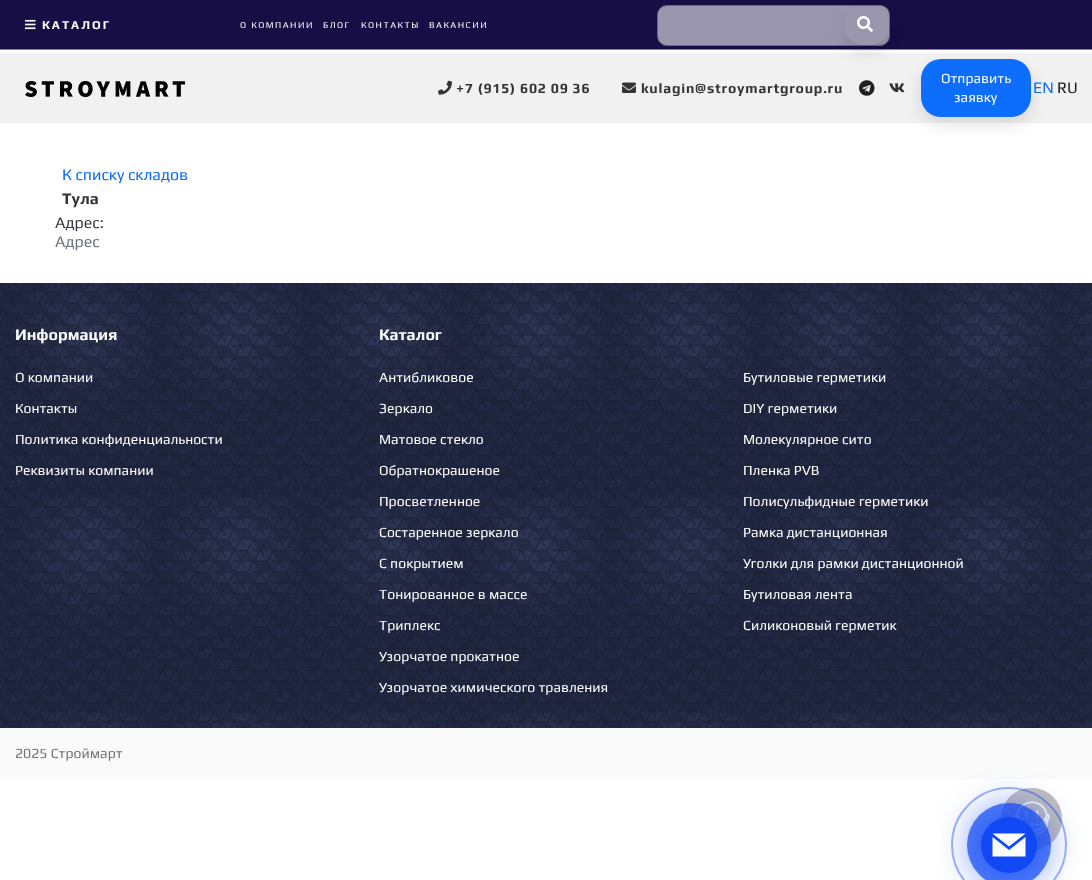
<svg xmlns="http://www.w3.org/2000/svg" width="1092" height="880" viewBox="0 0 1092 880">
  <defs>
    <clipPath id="clip1"><path d="M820 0H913V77H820ZM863.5 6H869.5C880.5 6 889 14.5 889 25.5C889 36.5 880.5 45 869.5 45H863.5C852.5 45 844 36.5 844 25.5C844 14.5 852.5 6 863.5 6Z" clip-rule="evenodd"/></clipPath>
  </defs>
  <rect width="100%" height="100%" fill="#fff"/>
  <path d="M0 0h1092v49H0z" fill="#160e44"/>
  <path d="M0 49h1092v1H0z" fill="#8c8383"/>
  <image x="25" y="19" width="11" height="11" href="img/1.png"/>
  <rect x="657.5" y="5.5" width="232" height="40" rx="9.5" fill="#9996ae" stroke="#6a6a6a"/>
  <path d="M0 53h1092v70H0z" fill="#f1f1f1"/>
  <g clip-path="url(#clip1)">
    <rect x="844" y="14" width="45" height="39" rx="19.5" fill="#0000001a" filter="blur(7.5px)"/>
  </g>
  <image x="857" y="16" width="16" height="16" href="img/2.png"/>
  <image x="25" y="81" width="160" height="16" href="img/3.png"/>
  <image x="438" y="80" width="14" height="15" href="img/4.png"/>
  <image x="622" y="82" width="14" height="11" href="img/5.png"/>
  <image x="859" y="80" width="16" height="16" href="img/6.png"/>
  <rect x="921" y="67" width="110" height="58" rx="20" fill="#0000001a" filter="blur(7.5px)"/>
  <image x="889" y="83" width="16" height="10" href="img/7.png"/>
  <rect x="921" y="59" width="110" height="58" rx="20" fill="#0d6efd"/>
  <image x="0" y="283" width="1092" height="445" href="img/8.png"/>
  <path d="M0 283h1092v445H0z" fill="#252b42b5"/>
  <path d="M0 728h1092v51H0z" fill="#fafafa"/>
  <rect x="1001" y="788" width="61" height="62" rx="30" fill="#c2bdbd"/>
  <image x="1014" y="801" width="36" height="35" href="img/9.png"/>
  <rect x="978" y="814" width="62" height="62" rx="31" fill="#1049f4" filter="blur(20px)"/>
  <circle cx="1009" cy="845" r="57" fill="none" stroke="#1049f46b" stroke-width="2"/>
  <circle cx="1009" cy="845" r="42" fill="#1049f4b3"/>
  <circle cx="1009" cy="845" r="28" fill="#1049f4"/>
  <path d="M1009 846.5L992.5 833.5H1025.5ZM992.5 837V856.5H1025.5V837L1009 850Z" fill="#fff"/>
  <text x="42" y="29" font-family="Play" font-size="12" font-weight="bold" letter-spacing="2" fill="#fff">КАТАЛОГ</text>
  <g font-family="Play" font-size="9" letter-spacing="1.5" fill="#fff">
    <text x="240" y="28">О КОМПАНИИ</text>
    <text x="323" y="28">БЛОГ</text>
    <text x="361" y="28">КОНТАКТЫ</text>
    <text x="429" y="28">ВАКАНСИИ</text>
  </g>
  <g font-family="Play" font-size="14" font-weight="bold" letter-spacing="0.8" fill="#333">
    <text x="456" y="93">+7 (915) 602 09 36</text>
    <text x="641" y="93">kulagin@stroymartgroup.ru</text>
  </g>
  <g font-family="Play" font-size="14" fill="#fff">
    <text x="941" y="83">Отправить</text>
    <text x="954" y="102">заявку</text>
  </g>
  <text x="1033" y="93" font-family="Play" font-size="16" fill="#0d6efd">EN</text>
  <text x="1057" y="93" font-family="Play" font-size="16" fill="#202020">RU</text>
  <text x="62" y="180" font-family="Play" font-size="16" fill="#0d6efd">К списку складов</text>
  <text x="62" y="204" font-family="Play" font-size="16" font-weight="bold" fill="#333">Тула</text>
  <text x="55" y="228" font-family="Play" font-size="16" fill="#343a40">Адрес:</text>
  <text x="55" y="247" font-family="Play" font-size="16" fill="#6c757d">Адрес</text>
  <text x="15" y="340" font-family="Play" font-size="16" font-weight="bold" fill="#fff">Информация</text>
  <g font-family="Play" font-size="14" fill="#fff">
    <text x="15" y="382">О компании</text>
    <text x="15" y="413">Контакты</text>
    <text x="15" y="444">Политика конфиденциальности</text>
    <text x="15" y="475">Реквизиты компании</text>
  </g>
  <text x="379" y="340" font-family="Play" font-size="16" font-weight="bold" fill="#fff">Каталог</text>
  <g font-family="Play" font-size="14" fill="#fff">
    <text x="379" y="382">Антибликовое</text>
    <text x="379" y="413">Зеркало</text>
    <text x="379" y="444">Матовое стекло</text>
    <text x="379" y="475">Обратнокрашеное</text>
    <text x="379" y="506">Просветленное</text>
    <text x="379" y="537">Состаренное зеркало</text>
    <text x="379" y="568">С покрытием</text>
    <text x="379" y="599">Тонированное в массе</text>
    <text x="379" y="630">Триплекс</text>
    <text x="379" y="661">Узорчатое прокатное</text>
    <text x="379" y="692">Узорчатое химического травления</text>
    <text x="743" y="382">Бутиловые герметики</text>
    <text x="743" y="413">DIY герметики</text>
    <text x="743" y="444">Молекулярное сито</text>
    <text x="743" y="475">Пленка PVB</text>
    <text x="743" y="506">Полисульфидные герметики</text>
    <text x="743" y="537">Рамка дистанционная</text>
    <text x="743" y="568">Уголки для рамки дистанционной</text>
    <text x="743" y="599">Бутиловая лента</text>
    <text x="743" y="630">Силиконовый герметик</text>
  </g>
  <text x="15" y="758" font-family="Play" font-size="14" fill="#737373">2025 Строймарт</text>
</svg>
